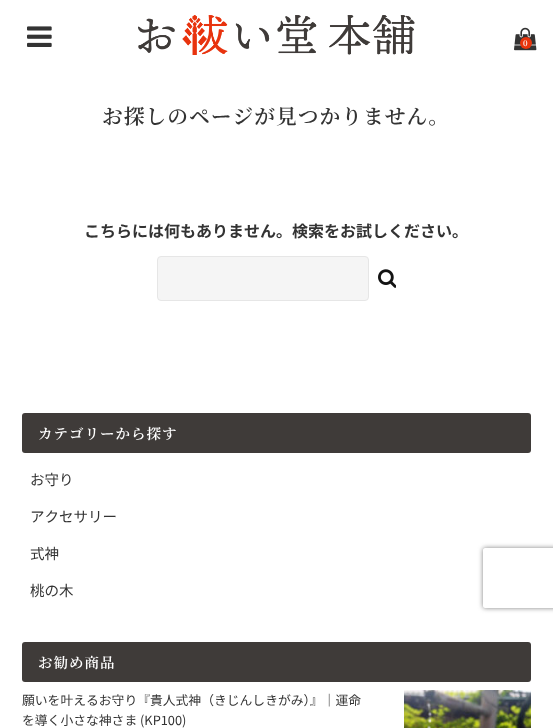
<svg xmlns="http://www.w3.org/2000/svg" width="553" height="728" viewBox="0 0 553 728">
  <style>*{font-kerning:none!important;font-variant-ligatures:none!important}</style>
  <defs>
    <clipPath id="clip1"><path d="M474 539H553V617H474ZM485 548H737C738 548 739 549 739 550V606C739 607 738 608 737 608H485C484 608 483 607 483 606V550C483 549 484 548 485 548Z" clip-rule="evenodd"/></clipPath>
  </defs>
  <rect width="100%" height="100%" fill="#fff"/>
  <image x="138" y="15" width="277" height="40" href="img/1.png"/>
  <image x="27" y="26" width="25" height="21" href="img/2.png"/>
  <image x="514" y="27" width="23" height="24" href="img/3.png"/>
  <circle cx="526" cy="43" r="6" fill="#e8340c"/>
  <rect x="157.5" y="256.5" width="211" height="44" rx="3.5" fill="#f5f5f5" stroke="#e6e6e6"/>
  <image x="378" y="269" width="18" height="19" href="img/4.png"/>
  <rect x="22" y="413" width="509" height="40" rx="3" fill="#3f3b39"/>
  <rect x="22" y="642" width="509" height="40" rx="3" fill="#3f3b39"/>
  <image x="404" y="690" width="127" height="38" href="img/5.png"/>
  <g clip-path="url(#clip1)">
    <rect x="483" y="548" width="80" height="60" rx="2" fill="#808080" filter="blur(2.5px)"/>
  </g>
  <text x="523" y="46" font-family="Noto Serif JP" font-size="8" font-weight="600" letter-spacing="1" fill="#fff">0</text>
  <text x="102" y="124" font-family="Noto Serif JP" font-size="20.75" font-weight="600" letter-spacing="1" fill="#333">お探しのページが見つかりません。</text>
  <text x="84" y="237" font-family="Noto Sans JP" font-size="16" font-weight="bold" fill="#333">こちらには何もありません。検索をお試しください。</text>
  <text x="38" y="439" font-family="Noto Serif JP" font-size="14.5" font-weight="600" letter-spacing="1" fill="#fff">カテゴリーから探す</text>
  <g font-family="Noto Sans JP" font-size="14.5" fill="#333">
    <text x="30" y="485">お守り</text>
    <text x="30" y="522">アクセサリー</text>
    <text x="30" y="559">式神</text>
    <text x="30" y="596">桃の木</text>
  </g>
  <text x="38" y="668" font-family="Noto Serif JP" font-size="14.5" font-weight="600" letter-spacing="1" fill="#fff">お勧め商品</text>
  <g font-family="Noto Sans JP" font-size="12.8" fill="#333">
    <text x="22" y="705">願いを叶えるお守り『貴人式神（きじんしきがみ）』｜運命</text>
    <text x="22" y="725">を導く小さな神さま (KP100)</text>
  </g>
</svg>
